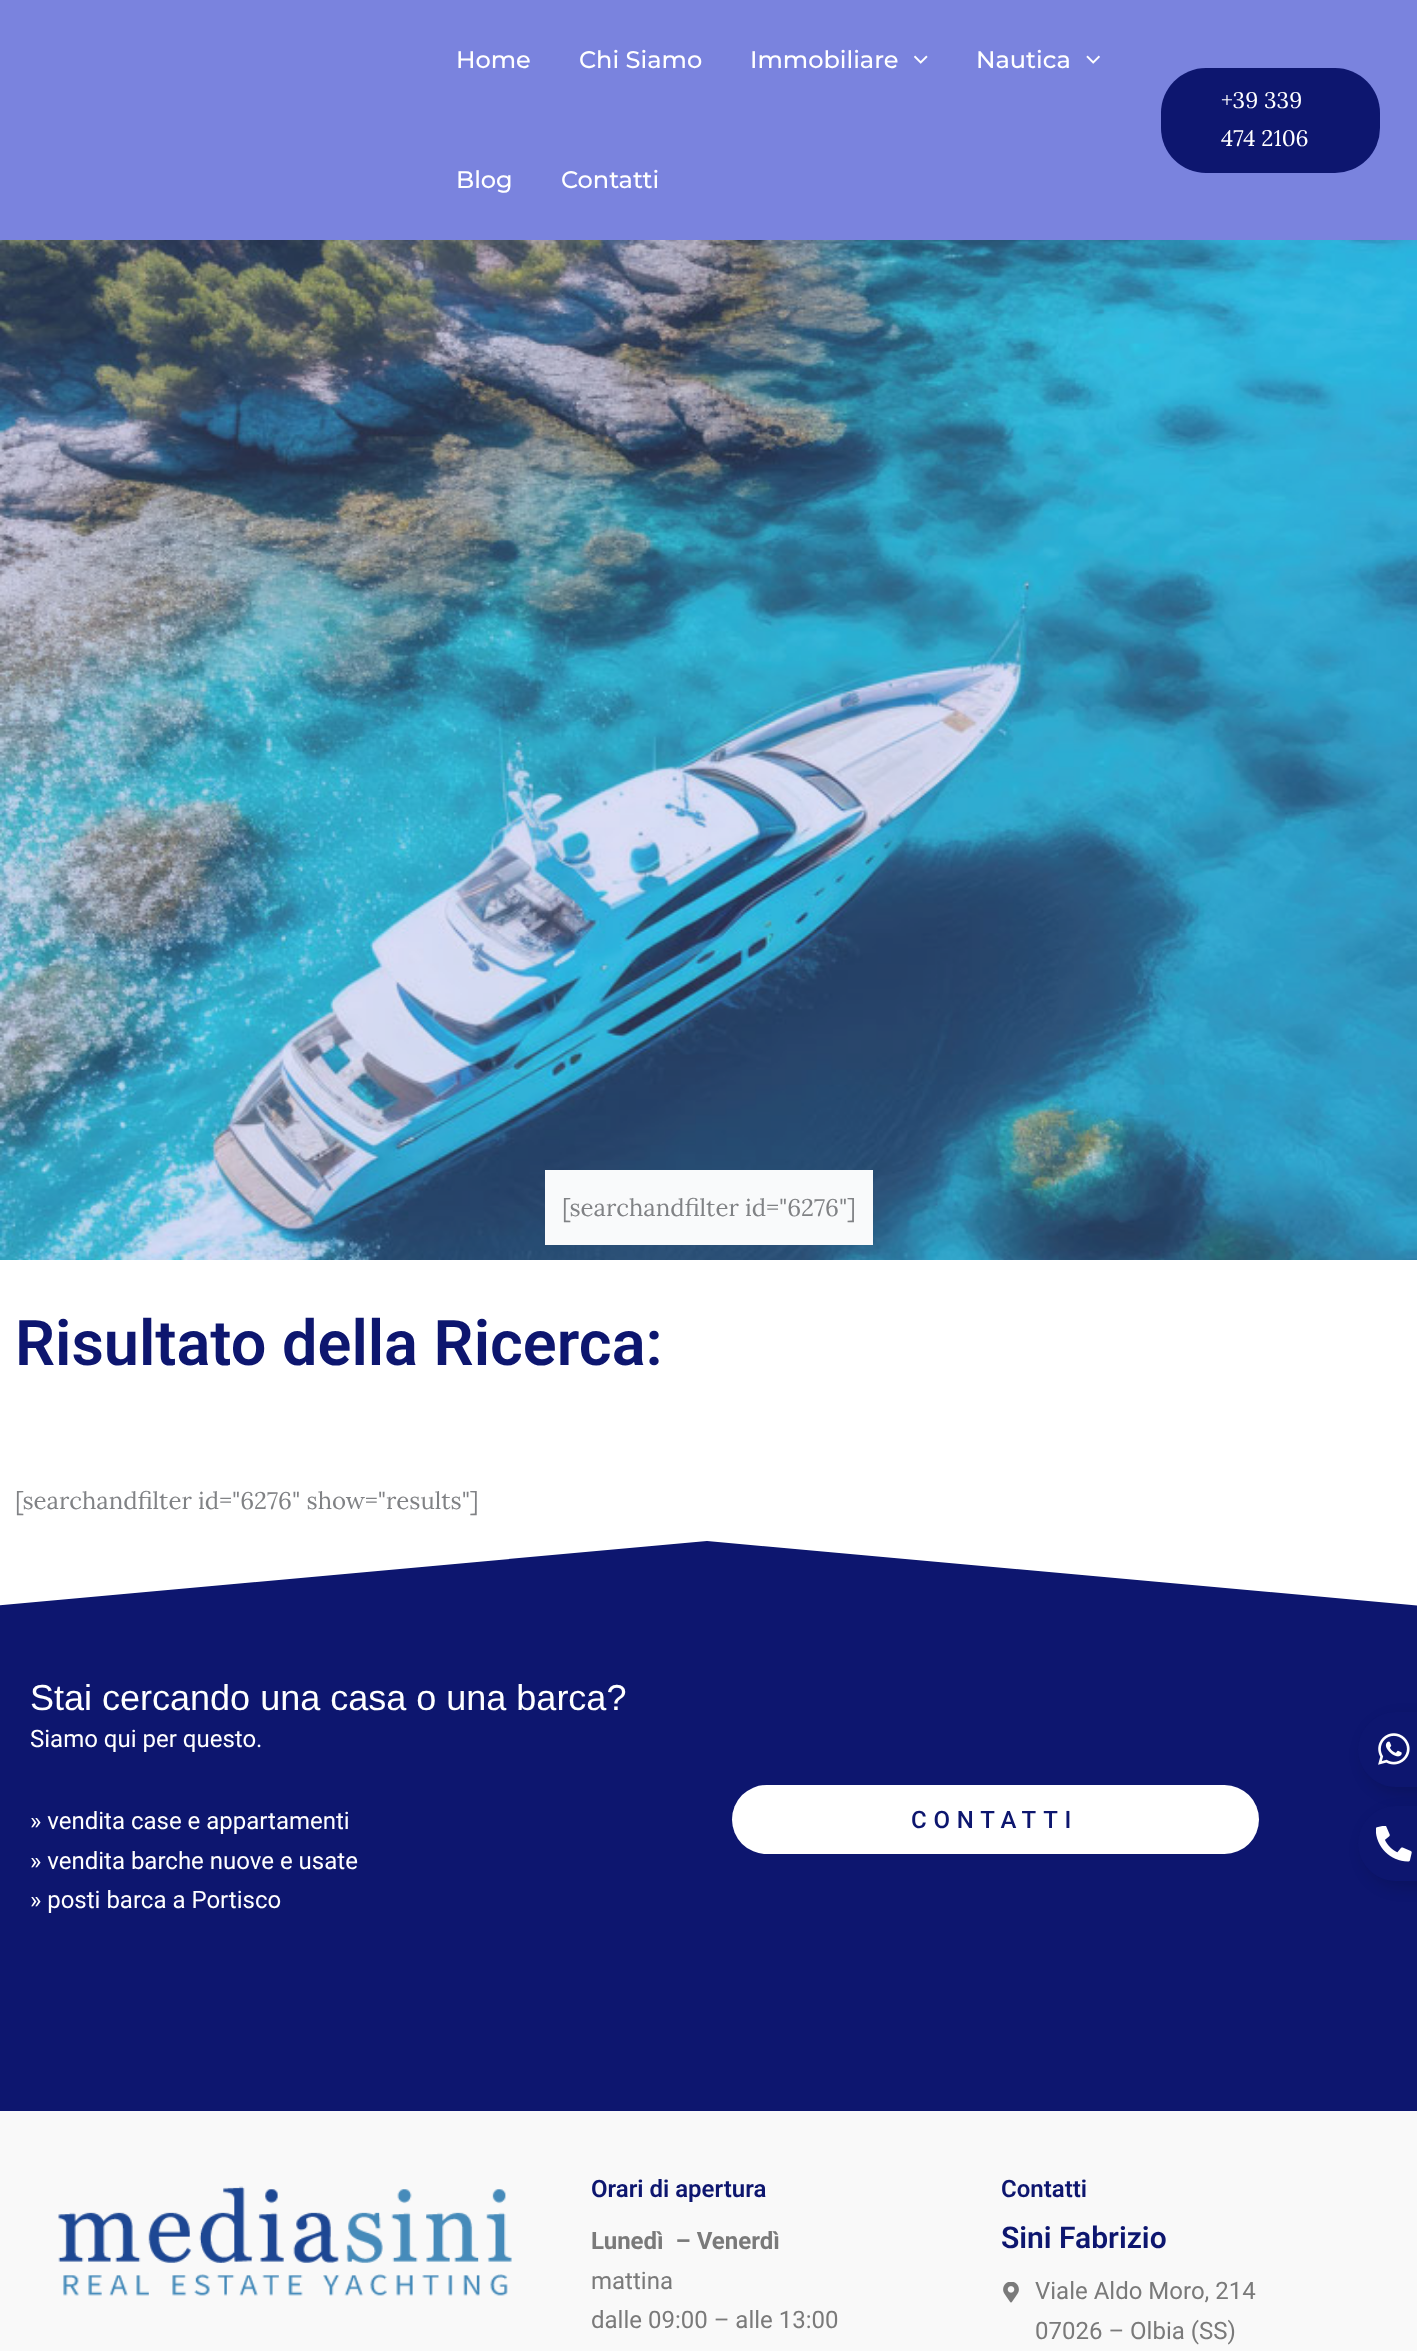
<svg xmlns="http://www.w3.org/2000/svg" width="1417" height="2351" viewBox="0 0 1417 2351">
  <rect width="100%" height="100%" fill="#fff"/>
  <path d="M0 0h1417v240H0z" fill="#7a83de"/>
  <image x="914" y="55" width="14" height="9" href="img/1.png"/>
  <image x="1086" y="55" width="14" height="9" href="img/2.png"/>
  <rect x="1161" y="68" width="219" height="105" rx="45" fill="#0d166f"/>
  <image x="0" y="240" width="1417" height="1020" href="img/3.png"/>
  <path d="M545 1170h328v75H545z" fill="#f9fafb"/>
  <path d="M0 1541h1417v570H0z" fill="#0d166f"/>
  <path d="M707 1541L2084 1666V1534H-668V1666Z" fill="#fff"/>
  <rect x="732" y="1785" width="527" height="69" rx="34.5" fill="#fff"/>
  <path d="M0 2111h1417v240H0z" fill="#f9f9f9"/>
  <image x="58" y="2186" width="454" height="110" href="img/4.png"/>
  <image x="1003" y="2282" width="16" height="21" href="img/5.png"/>
  <rect x="1364" y="1718" width="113" height="75" rx="37.5" fill="#00000026" filter="blur(7.5px)"/>
  <path d="M1395.5 1712H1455V1787H1395.5C1375 1787 1358 1770 1358 1749.5C1358 1729 1375 1712 1395.5 1712Z" fill="#0d166f"/>
  <image x="1378" y="1733" width="32" height="32" href="img/6.png"/>
  <rect x="1364" y="1812" width="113" height="75" rx="37.5" fill="#00000026" filter="blur(7.5px)"/>
  <path d="M1395.5 1806H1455V1881H1395.5C1375 1881 1358 1864 1358 1843.5C1358 1823 1375 1806 1395.5 1806Z" fill="#0d166f"/>
  <image x="1376" y="1826" width="36" height="36" href="img/7.png"/>
  <g font-family="Montserrat" font-size="24" font-weight="500" fill="#fff">
    <text x="456" y="68">Home</text>
    <text x="579" y="68">Chi Siamo</text>
    <text x="750" y="68">Immobiliare</text>
    <text x="976" y="68">Nautica</text>
    <text x="456" y="188">Blog</text>
    <text x="561" y="188">Contatti</text>
  </g>
  <g font-family="Lora" font-size="22.5" fill="#fff">
    <text x="1221" y="108">+39 339</text>
    <text x="1221" y="146">474 2106</text>
  </g>
  <text x="562" y="1216" font-family="Lora" font-size="24" fill="#808285">[searchandfilter id="6276"]</text>
  <text x="15" y="1365" font-family="Roboto" font-size="63" font-weight="600" fill="#0d166f">Risultato della Ricerca:</text>
  <text x="15" y="1509" font-family="Lora" font-size="24" fill="#808285">[searchandfilter id="6276" show="results"]</text>
  <text x="30" y="1710" font-family="Liberation Sans" font-size="36" fill="#fff">Stai cercando una casa o una barca?</text>
  <g font-family="Roboto" font-size="24" fill="#fff">
    <text x="30" y="1747">Siamo qui per questo.</text>
    <text x="30" y="1829">» vendita case e appartamenti</text>
    <text x="30" y="1869">» vendita barche nuove e usate</text>
    <text x="30" y="1908">» posti barca a Portisco</text>
  </g>
  <text x="911" y="1828" font-family="Roboto" font-size="24" font-weight="500" letter-spacing="6.75" fill="#0d166f">CONTATTI</text>
  <text x="591" y="2197" font-family="Roboto" font-size="24" font-weight="600" fill="#0d166f">Orari di apertura</text>
  <text x="591" y="2249" font-family="Roboto" font-size="24" font-weight="bold" fill="#7a7a7a" xml:space="preserve">Lunedì  – Venerdì</text>
  <g font-family="Roboto" font-size="24" fill="#7a7a7a">
    <text x="591" y="2289">mattina</text>
    <text x="591" y="2328">dalle 09:00 – alle 13:00</text>
  </g>
  <text x="1001" y="2197" font-family="Roboto" font-size="24" font-weight="600" fill="#0d166f">Contatti</text>
  <text x="1001" y="2248" font-family="Roboto" font-size="30" font-weight="600" fill="#0d166f">Sini Fabrizio</text>
  <g font-family="Roboto" font-size="24" fill="#7a7a7a">
    <text x="1035" y="2299">Viale Aldo Moro, 214</text>
    <text x="1035" y="2339">07026 – Olbia (SS)</text>
  </g>
</svg>
